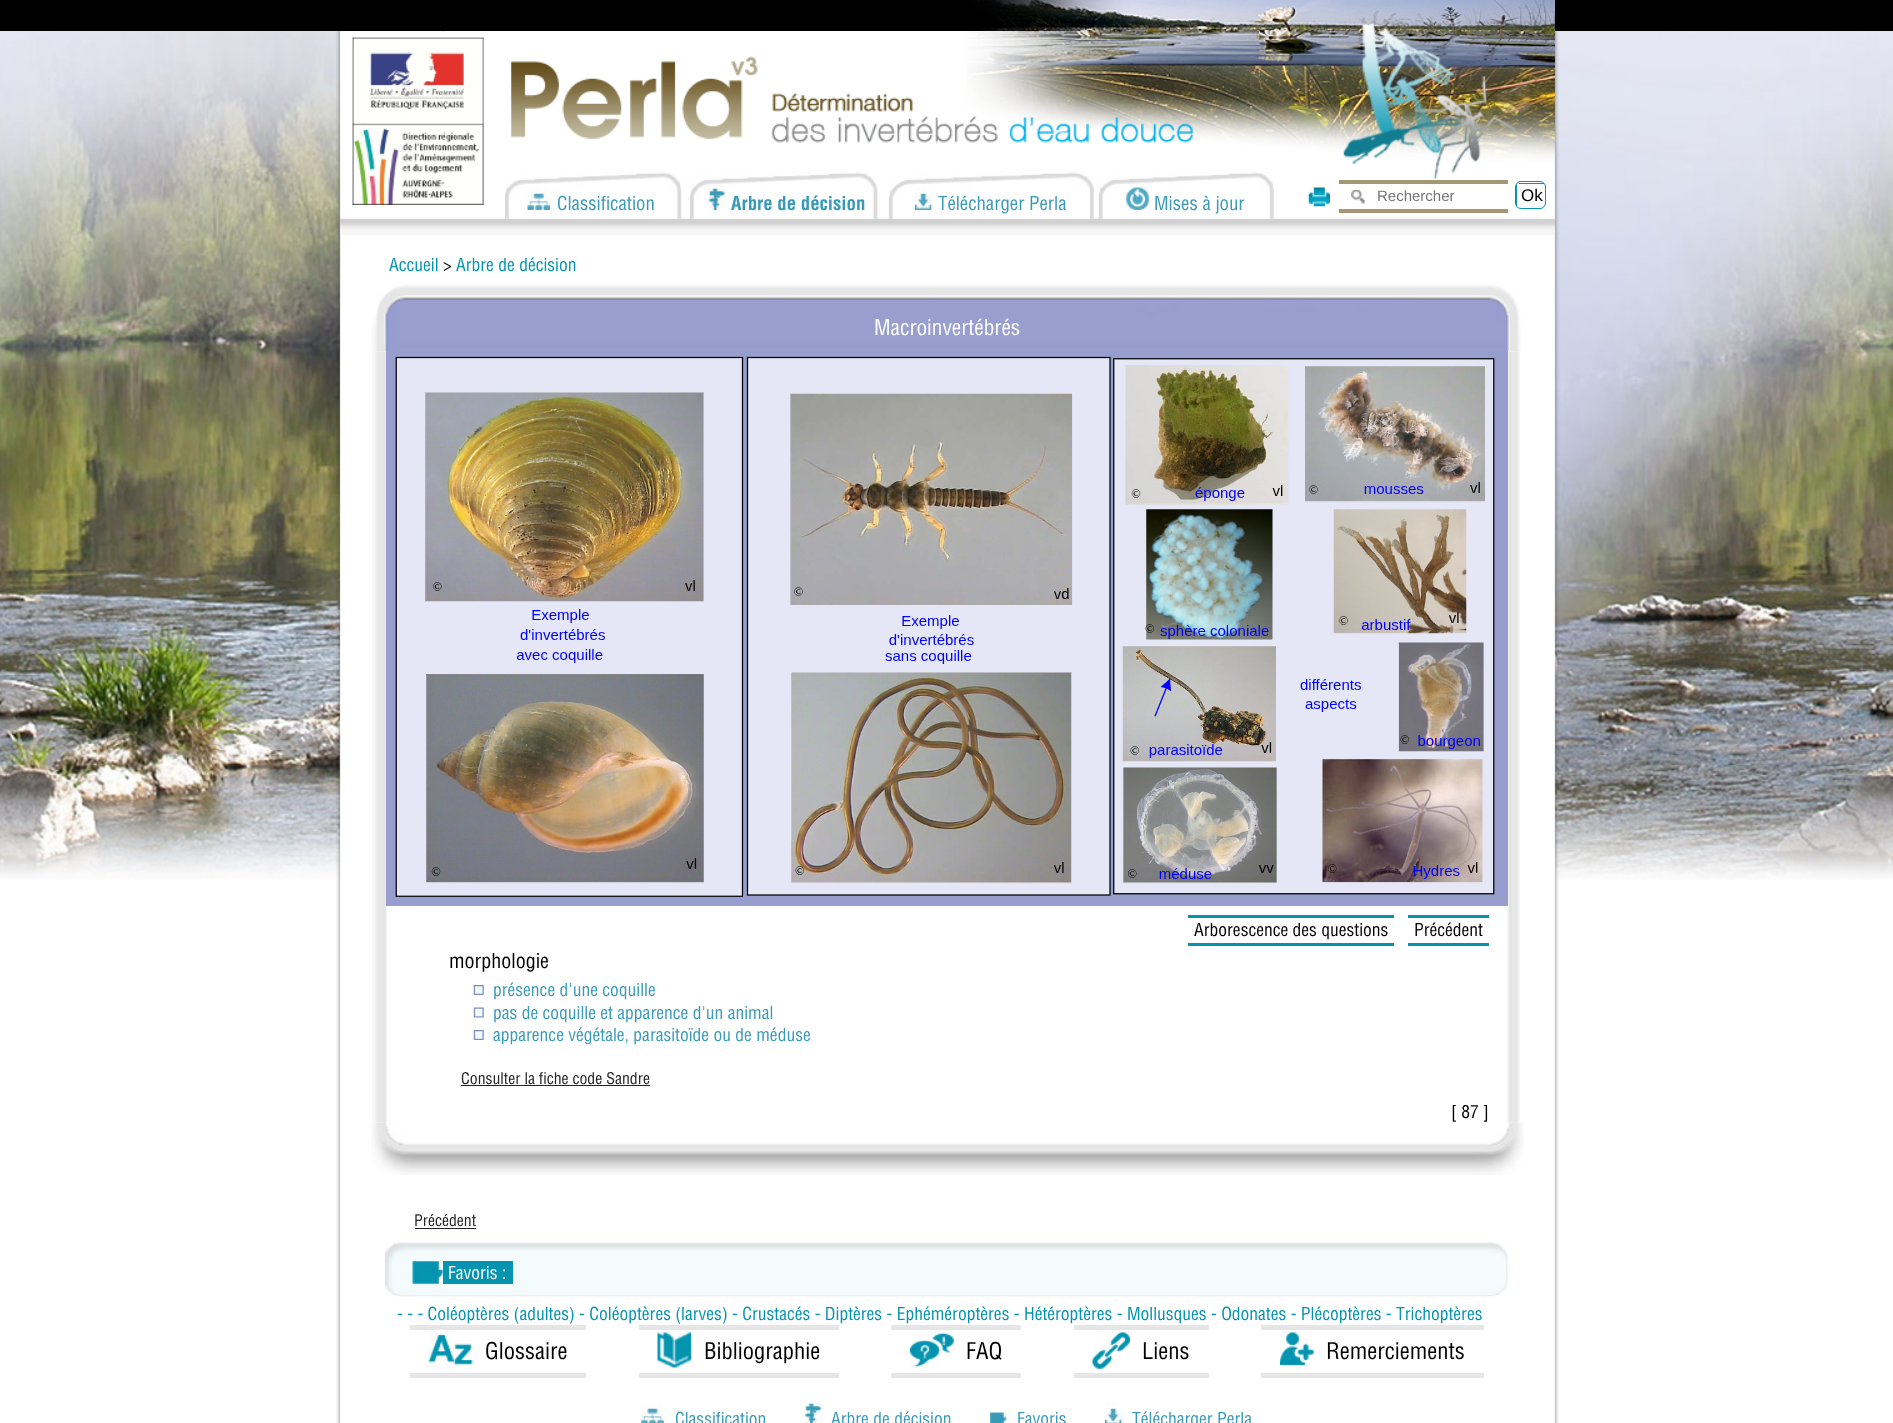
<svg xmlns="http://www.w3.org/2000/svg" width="1893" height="1423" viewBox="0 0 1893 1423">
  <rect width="100%" height="100%" fill="#fff"/>
  <image x="0" y="31" width="1893" height="849" href="img/1.png"/>
  <path d="M0 0h1893v31H0z" fill="#000"/>
  <image x="336" y="31" width="1223" height="204" href="img/2.png"/>
  <image x="352" y="37" width="132" height="168" href="img/3.png"/>
  <image x="967" y="0" width="588" height="179" href="img/5.png"/>
  <image x="511" y="56" width="683" height="87" href="img/4.png"/>
  <image x="340" y="218" width="1215" height="17" href="img/16.png"/>
  <image x="505" y="172" width="177" height="47" href="img/6.png"/>
  <image x="527" y="188" width="24" height="22" href="img/7.png"/>
  <image x="690" y="172" width="188" height="47" href="img/8.png"/>
  <image x="708" y="187" width="19" height="23" href="img/9.png"/>
  <image x="888" y="172" width="206" height="47" href="img/10.png"/>
  <image x="915" y="187" width="19" height="23" href="img/11.png"/>
  <image x="1098" y="172" width="176" height="47" href="img/12.png"/>
  <image x="1126" y="187" width="23" height="23" href="img/13.png"/>
  <image x="1308" y="187" width="22" height="20" href="img/14.png"/>
  <path d="M1339 180h169v4H1339z" fill="#a39774"/>
  <path d="M1339 209h169v4H1339z" fill="#a39774"/>
  <image x="1351" y="190" width="14" height="14" href="img/15.png"/>
  <rect x="1515.5" y="181.5" width="30" height="27" rx="5.5" fill="none" stroke="#0494b0"/>
  <path d="M1519 183h25v1H1519z" fill="#0494b0"/>
  <path d="M1516 185h1v21H1516z" fill="#0494b0"/>
  <image x="336" y="235" width="1223" height="977" href="img/17.png"/>
  <image x="371" y="285" width="1150" height="67" href="img/18.png"/>
  <image x="372" y="351" width="1148" height="772" href="img/19.png"/>
  <path d="M386 351h1122v555H386z" fill="#979ece"/>
  <image x="395" y="356" width="1100" height="541" href="img/20.png"/>
  <path d="M1188 915h206v3H1188z" fill="#0494b0"/>
  <path d="M1188 943h206v3H1188z" fill="#0494b0"/>
  <path d="M1408 915h81v3H1408z" fill="#0494b0"/>
  <path d="M1408 943h81v3H1408z" fill="#0494b0"/>
  <image x="473" y="985" width="11" height="10" href="img/21.png"/>
  <image x="473" y="1007" width="11" height="11" href="img/22.png"/>
  <image x="473" y="1030" width="11" height="10" href="img/21.png"/>
  <path d="M461 1085h189v1H461z" fill="#222"/>
  <image x="371" y="1122" width="1153" height="53" href="img/23.png"/>
  <image x="336" y="1211" width="1223" height="212" href="img/24.png"/>
  <path d="M415 1228h61v1H415z" fill="#222"/>
  <image x="385" y="1242" width="1123" height="55" href="img/25.png"/>
  <image x="412" y="1261" width="31" height="23" href="img/26.png"/>
  <path d="M443 1261h70v23H443z" fill="#0494b0"/>
  <path d="M410 1325h176v5H410z" fill="#e6e6e6"/>
  <path d="M410 1373h176v5H410z" fill="#e6e6e6"/>
  <image x="428" y="1330" width="45" height="40" href="img/27.png"/>
  <path d="M639 1325h200v5H639z" fill="#e6e6e6"/>
  <path d="M639 1373h200v5H639z" fill="#e6e6e6"/>
  <image x="657" y="1330" width="35" height="40" href="img/28.png"/>
  <path d="M891 1325h130v5H891z" fill="#e6e6e6"/>
  <path d="M891 1373h130v5H891z" fill="#e6e6e6"/>
  <image x="910" y="1330" width="44" height="40" href="img/29.png"/>
  <path d="M1074 1325h135v5H1074z" fill="#e6e6e6"/>
  <path d="M1074 1373h135v5H1074z" fill="#e6e6e6"/>
  <image x="1092" y="1330" width="38" height="40" href="img/30.png"/>
  <path d="M1261 1325h223v5H1261z" fill="#e6e6e6"/>
  <path d="M1261 1373h223v5H1261z" fill="#e6e6e6"/>
  <image x="1280" y="1330" width="34" height="40" href="img/31.png"/>
  <image x="641" y="1403" width="25" height="20" href="img/32.png"/>
  <image x="805" y="1402" width="18" height="21" href="img/33.png"/>
  <image x="990" y="1412" width="19" height="11" href="img/34.png"/>
  <image x="1105" y="1402" width="19" height="21" href="img/35.png"/>
  <text x="557" y="210" font-family="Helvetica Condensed" font-size="18.75" font-weight="500" fill="#399ab7">Classification</text>
  <text x="731" y="210" font-family="Helvetica Condensed" font-size="18.75" font-weight="bold" fill="#399ab7">Arbre de décision</text>
  <g font-family="Helvetica Condensed" font-size="18.75" font-weight="500" fill="#399ab7">
    <text x="938" y="210">Télécharger Perla</text>
    <text x="1154" y="210">Mises à jour</text>
  </g>
  <text x="1377" y="201" font-family="Liberation Sans" font-size="15" fill="#757575">Rechercher</text>
  <text x="1521" y="201" font-family="Liberation Sans" font-size="17" fill="#000">Ok</text>
  <text x="389" y="271" font-family="Helvetica Condensed" font-size="17.5" font-weight="500" fill="#0494b0">Accueil</text>
  <text x="443" y="271" font-family="Helvetica Condensed" font-size="17.5" font-weight="500" fill="#000">&gt;</text>
  <text x="456" y="271" font-family="Helvetica Condensed" font-size="17.5" font-weight="500" fill="#0494b0">Arbre de décision</text>
  <text x="874" y="335" font-family="Helvetica Condensed" font-size="21.25" font-weight="500" fill="#fff">Macroinvertébrés</text>
  <g font-family="Helvetica Condensed" font-size="17.5" font-weight="500" fill="#000">
    <text x="1194" y="936">Arborescence des questions</text>
    <text x="1414" y="936">Précédent</text>
  </g>
  <text x="449" y="968" font-family="Helvetica Condensed" font-size="20" font-weight="500" fill="#000">morphologie</text>
  <g font-family="Helvetica Condensed" font-size="17.5" font-weight="500" fill="#399ab7">
    <text x="493" y="996">présence d'une coquille</text>
    <text x="493" y="1019">pas de coquille et apparence d'un animal</text>
    <text x="493" y="1041">apparence végétale, parasitoïde ou de méduse</text>
  </g>
  <text x="461" y="1084" font-family="Helvetica Condensed" font-size="15.75" font-weight="500" fill="#222">Consulter la fiche code Sandre</text>
  <text x="1451" y="1118" font-family="Helvetica Condensed" font-size="17.5" font-weight="500" fill="#000">[ 87 ]</text>
  <text x="414" y="1226" font-family="Helvetica Condensed" font-size="15.75" font-weight="500" fill="#222">Précédent</text>
  <text x="448" y="1279" font-family="Helvetica Condensed" font-size="17.5" font-weight="500" fill="#fff">Favoris :</text>
  <text x="397" y="1320" font-family="Helvetica Condensed" font-size="17.5" font-weight="500" fill="#0494b0">- - - Coléoptères (adultes) - Coléoptères (larves) - Crustacés - Diptères - Ephéméroptères - Hétéroptères - Mollusques - Odonates - Plécoptères - Trichoptères</text>
  <g font-family="Helvetica Condensed" font-size="22.5" font-weight="500" fill="#000">
    <text x="485" y="1359">Glossaire</text>
    <text x="704" y="1359">Bibliographie</text>
    <text x="966" y="1359">FAQ</text>
    <text x="1142" y="1359">Liens</text>
    <text x="1326" y="1359">Remerciements</text>
  </g>
  <g font-family="Helvetica Condensed" font-size="17.5" font-weight="500" fill="#399ab7">
    <text x="675" y="1425">Classification</text>
    <text x="831" y="1425">Arbre de décision</text>
    <text x="1017" y="1425">Favoris</text>
    <text x="1132" y="1425">Télécharger Perla</text>
  </g>
</svg>
